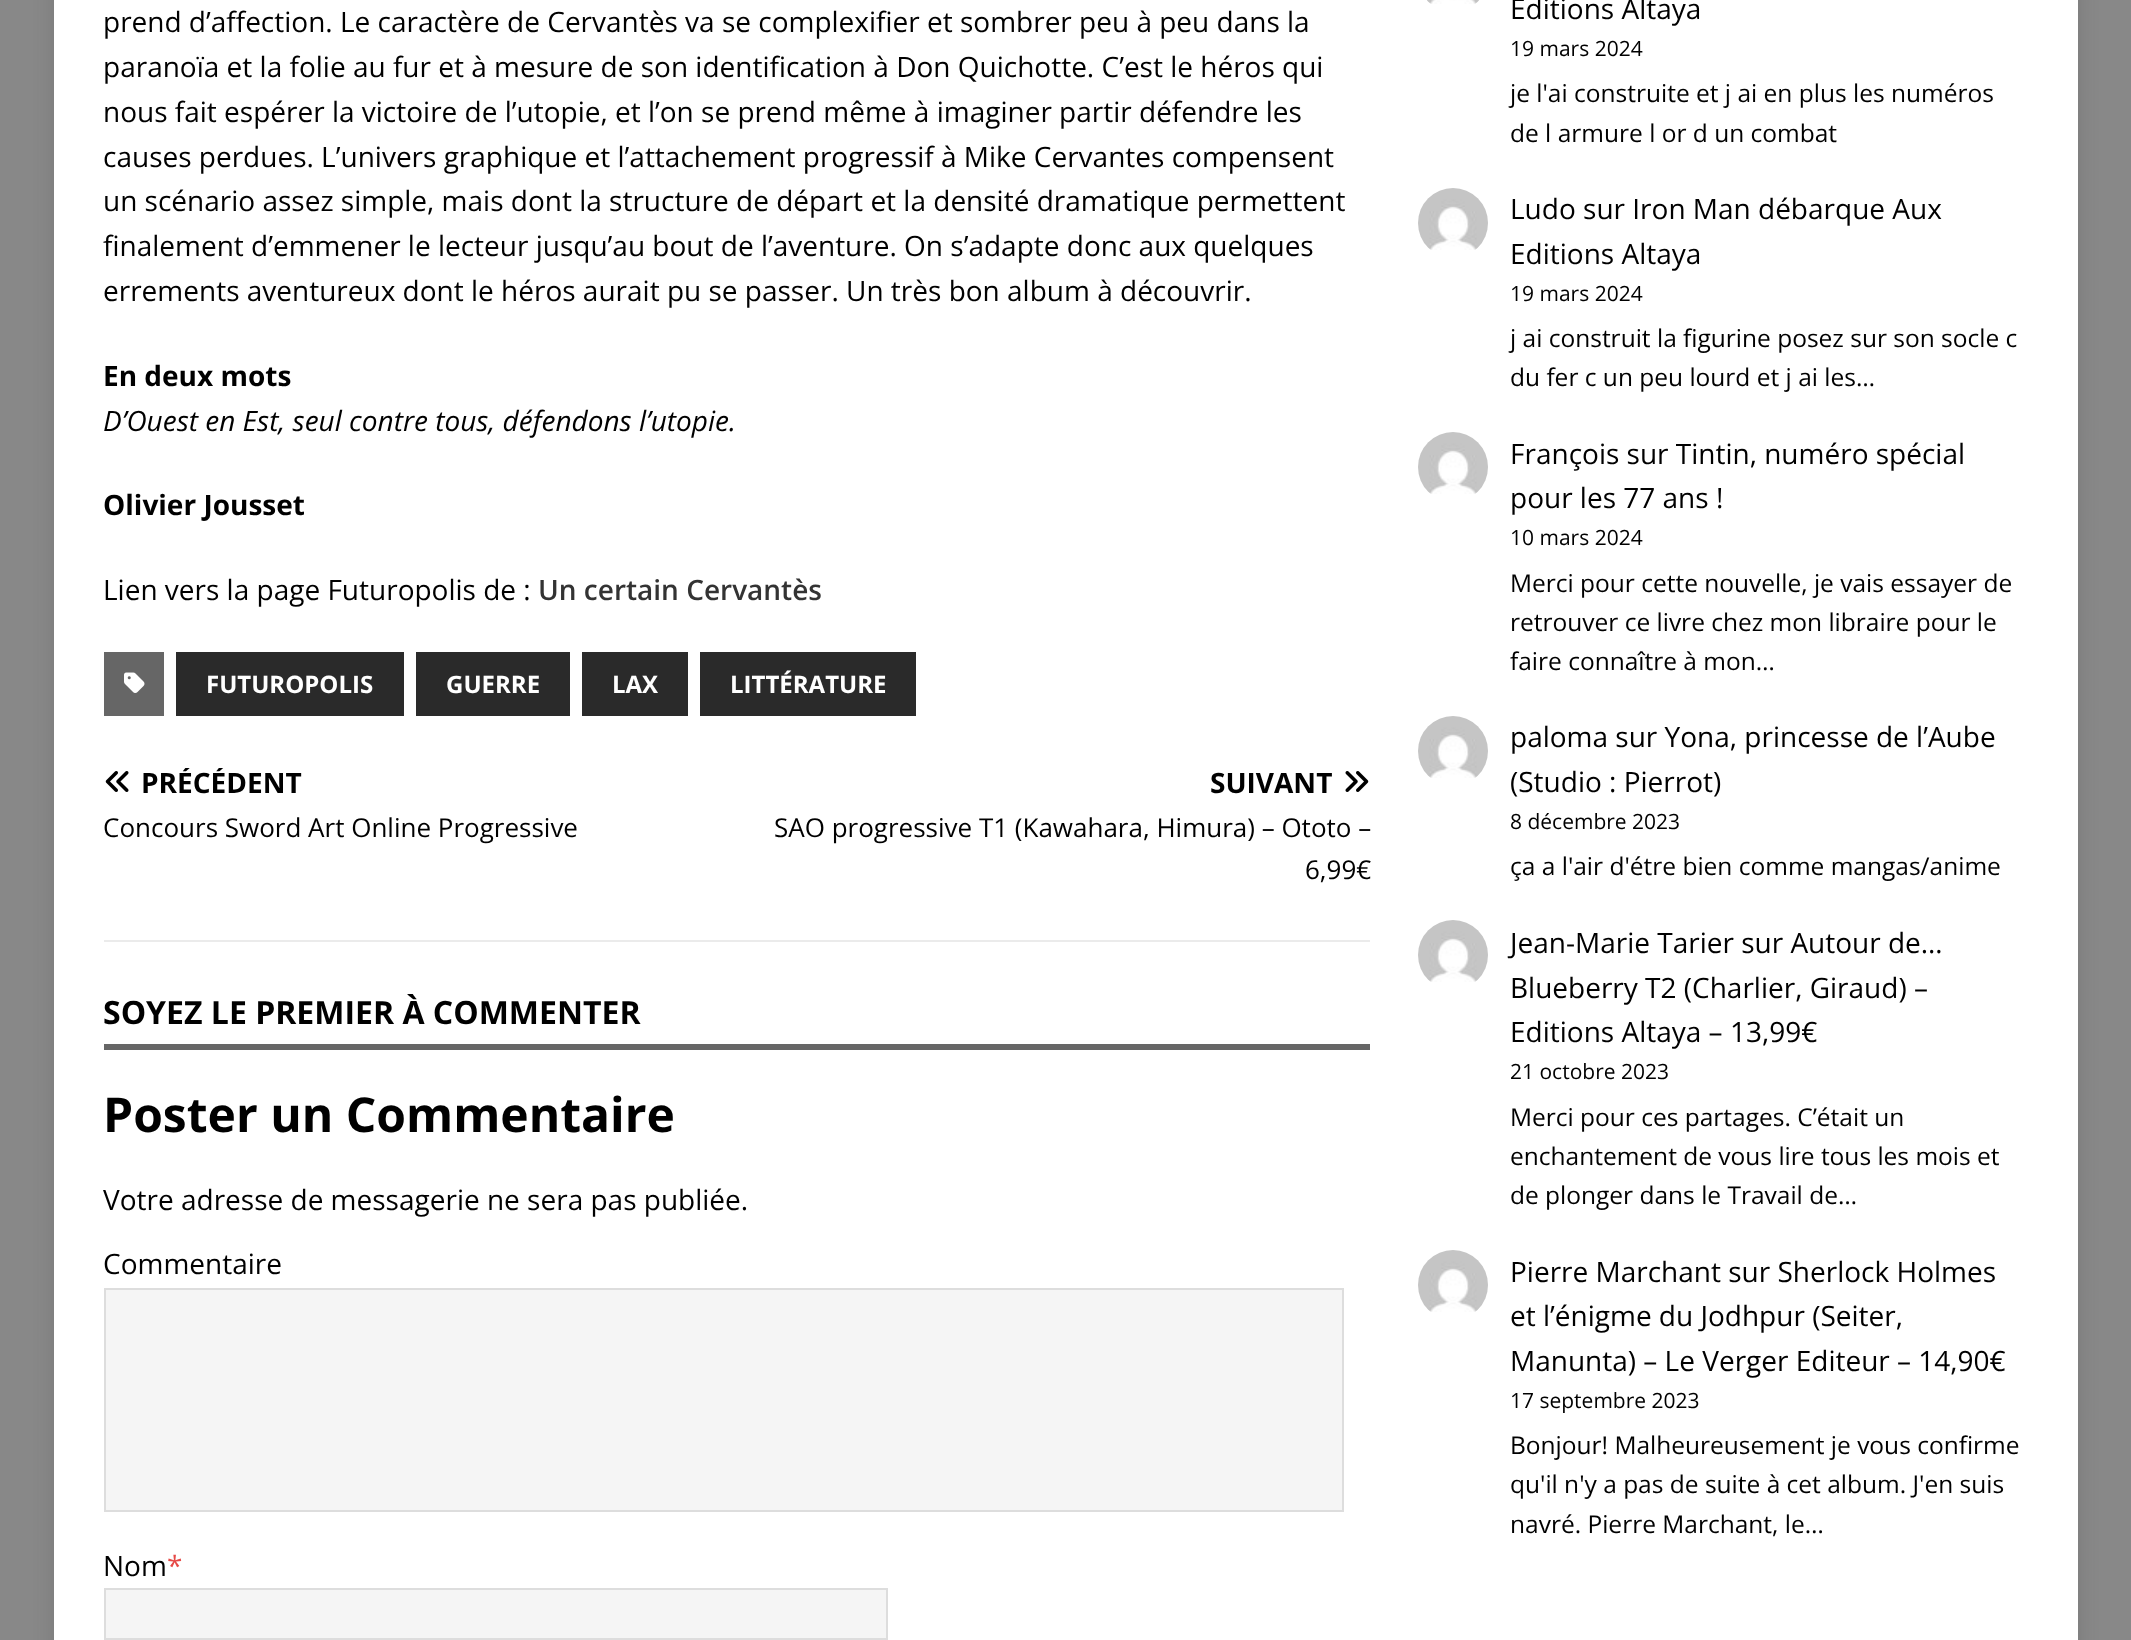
<svg xmlns="http://www.w3.org/2000/svg" width="2131" height="1640" viewBox="0 0 2131 1640">
  <defs>
    <clipPath id="clip1"><path d="M104 768h618v28H104z"/></clipPath>
  </defs>
  <rect width="100%" height="100%" fill="#888"/>
  <path d="M54 -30h2024v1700H54z" fill="#3232322b" filter="blur(10px)"/>
  <path d="M54 0h2024v1640H54z" fill="#fff"/>
  <path d="M104 652h60v64H104z" fill="#666"/>
  <image x="124" y="672" width="21" height="21" href="img/1.png"/>
  <path d="M176 652h228v64H176z" fill="#2a2a2a"/>
  <path d="M416 652h154v64H416z" fill="#2a2a2a"/>
  <path d="M582 652h106v64H582z" fill="#2a2a2a"/>
  <path d="M700 652h216v64H700z" fill="#2a2a2a"/>
  <path d="M104 940h1266v2H104z" fill="#ebebeb"/>
  <image x="105" y="771" width="24" height="21" href="img/2.png"/>
  <image x="1345" y="771" width="24" height="21" href="img/3.png"/>
  <path d="M104 1044h1266v6H104z" fill="#666"/>
  <path d="M105 1289h1238v222H105z" fill="#f5f5f5" stroke="#ddd" stroke-width="2"/>
  <path d="M105 1589h782v50H105z" fill="#f5f5f5" stroke="#ddd" stroke-width="2"/>
  <image x="1427" y="0" width="52" height="4" href="img/4.png"/>
  <image x="1418" y="188" width="70" height="62" href="img/5.png"/>
  <image x="1418" y="432" width="70" height="62" href="img/6.png"/>
  <image x="1418" y="716" width="70" height="62" href="img/6.png"/>
  <image x="1418" y="920" width="70" height="62" href="img/7.png"/>
  <image x="1418" y="1250" width="70" height="62" href="img/5.png"/>
  <g font-family="Open Sans" font-size="28" fill="#000">
    <text x="103" y="32">prend d’affection. Le caractère de Cervantès va se complexifier et sombrer peu à peu dans la</text>
    <text x="103" y="77">paranoïa et la folie au fur et à mesure de son identification à Don Quichotte. C’est le héros qui</text>
    <text x="103" y="122">nous fait espérer la victoire de l’utopie, et l’on se prend même à imaginer partir défendre les</text>
    <text x="103" y="167">causes perdues. L’univers graphique et l’attachement progressif à Mike Cervantes compensent</text>
    <text x="103" y="211">un scénario assez simple, mais dont la structure de départ et la densité dramatique permettent</text>
    <text x="103" y="256">finalement d’emmener le lecteur jusqu’au bout de l’aventure. On s’adapte donc aux quelques</text>
    <text x="103" y="301">errements aventureux dont le héros aurait pu se passer. Un très bon album à découvrir.</text>
  </g>
  <text x="103" y="386" font-family="Open Sans" font-size="28" font-weight="bold" fill="#000">En deux mots</text>
  <text x="103" y="431" font-family="Open Sans" font-size="28" font-style="italic" fill="#000">D’Ouest en Est, seul contre tous, défendons l’utopie.</text>
  <text x="103" y="515" font-family="Open Sans" font-size="28" font-weight="bold" fill="#000">Olivier Jousset</text>
  <text x="103" y="600" font-family="Open Sans" font-size="28" fill="#000">Lien vers la page Futuropolis de :</text>
  <text x="538" y="600" font-family="Open Sans" font-size="28" font-weight="600" fill="#333">Un certain Cervantès</text>
  <g font-family="Open Sans" font-size="24" font-weight="bold" fill="#fff">
    <text x="206" y="693">FUTUROPOLIS</text>
    <text x="446" y="693">GUERRE</text>
    <text x="612" y="693">LAX</text>
    <text x="730" y="693">LITTÉRATURE</text>
  </g>
  <g clip-path="url(#clip1)">
    <text x="141" y="793" font-family="Open Sans" font-size="28" font-weight="bold" fill="#000">PRÉCÉDENT</text>
  </g>
  <text x="103" y="837" font-family="Open Sans" font-size="26" fill="#000">Concours Sword Art Online Progressive</text>
  <text x="1210" y="793" font-family="Open Sans" font-size="28" font-weight="bold" fill="#000">SUIVANT</text>
  <g font-family="Open Sans" font-size="26" fill="#000">
    <text x="774" y="837">SAO progressive T1 (Kawahara, Himura) – Ototo –</text>
    <text x="1305" y="879">6,99€</text>
  </g>
  <text x="103" y="1024" font-family="Open Sans" font-size="32" font-weight="bold" fill="#000">SOYEZ LE PREMIER À COMMENTER</text>
  <text x="103" y="1132" font-family="Open Sans" font-size="48" font-weight="bold" fill="#000">Poster un Commentaire</text>
  <g font-family="Open Sans" font-size="28" fill="#000">
    <text x="103" y="1210">Votre adresse de messagerie ne sera pas publiée.</text>
    <text x="103" y="1274">Commentaire</text>
    <text x="103" y="1576">Nom</text>
  </g>
  <text x="167" y="1576" font-family="Open Sans" font-size="28" fill="#e64946">*</text>
  <text x="1510" y="19" font-family="Open Sans" font-size="28" fill="#000">Editions Altaya</text>
  <text x="1510" y="56" font-family="Open Sans" font-size="21" fill="#000">19 mars 2024</text>
  <g font-family="Open Sans" font-size="24.5" fill="#000">
    <text x="1510" y="102">je l'ai construite et j ai en plus les numéros</text>
    <text x="1510" y="142">de l armure l or d un combat</text>
  </g>
  <g font-family="Open Sans" font-size="28" fill="#000">
    <text x="1510" y="219">Ludo sur Iron Man débarque Aux</text>
    <text x="1510" y="264">Editions Altaya</text>
  </g>
  <text x="1510" y="301" font-family="Open Sans" font-size="21" fill="#000">19 mars 2024</text>
  <g font-family="Open Sans" font-size="24.5" fill="#000">
    <text x="1510" y="347">j ai construit la figurine posez sur son socle c</text>
    <text x="1510" y="386">du fer c un peu lourd et j ai les…</text>
  </g>
  <g font-family="Open Sans" font-size="28" fill="#000">
    <text x="1510" y="464">François sur Tintin, numéro spécial</text>
    <text x="1510" y="508">pour les 77 ans !</text>
  </g>
  <text x="1510" y="545" font-family="Open Sans" font-size="21" fill="#000">10 mars 2024</text>
  <g font-family="Open Sans" font-size="24.5" fill="#000">
    <text x="1510" y="592">Merci pour cette nouvelle, je vais essayer de</text>
    <text x="1510" y="631">retrouver ce livre chez mon libraire pour le</text>
    <text x="1510" y="670">faire connaître à mon…</text>
  </g>
  <g font-family="Open Sans" font-size="28" fill="#000">
    <text x="1510" y="747">paloma sur Yona, princesse de l’Aube</text>
    <text x="1510" y="792">(Studio : Pierrot)</text>
  </g>
  <text x="1510" y="829" font-family="Open Sans" font-size="21" fill="#000">8 décembre 2023</text>
  <text x="1510" y="875" font-family="Open Sans" font-size="24.5" fill="#000">ça a l'air d'étre bien comme mangas/anime</text>
  <g font-family="Open Sans" font-size="28" fill="#000">
    <text x="1510" y="953">Jean-Marie Tarier sur Autour de…</text>
    <text x="1510" y="998">Blueberry T2 (Charlier, Giraud) –</text>
    <text x="1510" y="1042">Editions Altaya – 13,99€</text>
  </g>
  <text x="1510" y="1079" font-family="Open Sans" font-size="21" fill="#000">21 octobre 2023</text>
  <g font-family="Open Sans" font-size="24.5" fill="#000">
    <text x="1510" y="1126">Merci pour ces partages. C’était un</text>
    <text x="1510" y="1165">enchantement de vous lire tous les mois et</text>
    <text x="1510" y="1204">de plonger dans le Travail de…</text>
  </g>
  <g font-family="Open Sans" font-size="28" fill="#000">
    <text x="1510" y="1282">Pierre Marchant sur Sherlock Holmes</text>
    <text x="1510" y="1326">et l’énigme du Jodhpur (Seiter,</text>
    <text x="1510" y="1371">Manunta) – Le Verger Editeur – 14,90€</text>
  </g>
  <text x="1510" y="1408" font-family="Open Sans" font-size="21" fill="#000">17 septembre 2023</text>
  <g font-family="Open Sans" font-size="24.5" fill="#000">
    <text x="1510" y="1454">Bonjour! Malheureusement je vous confirme</text>
    <text x="1510" y="1493">qu'il n'y a pas de suite à cet album. J'en suis</text>
    <text x="1510" y="1533">navré. Pierre Marchant, le…</text>
  </g>
</svg>
